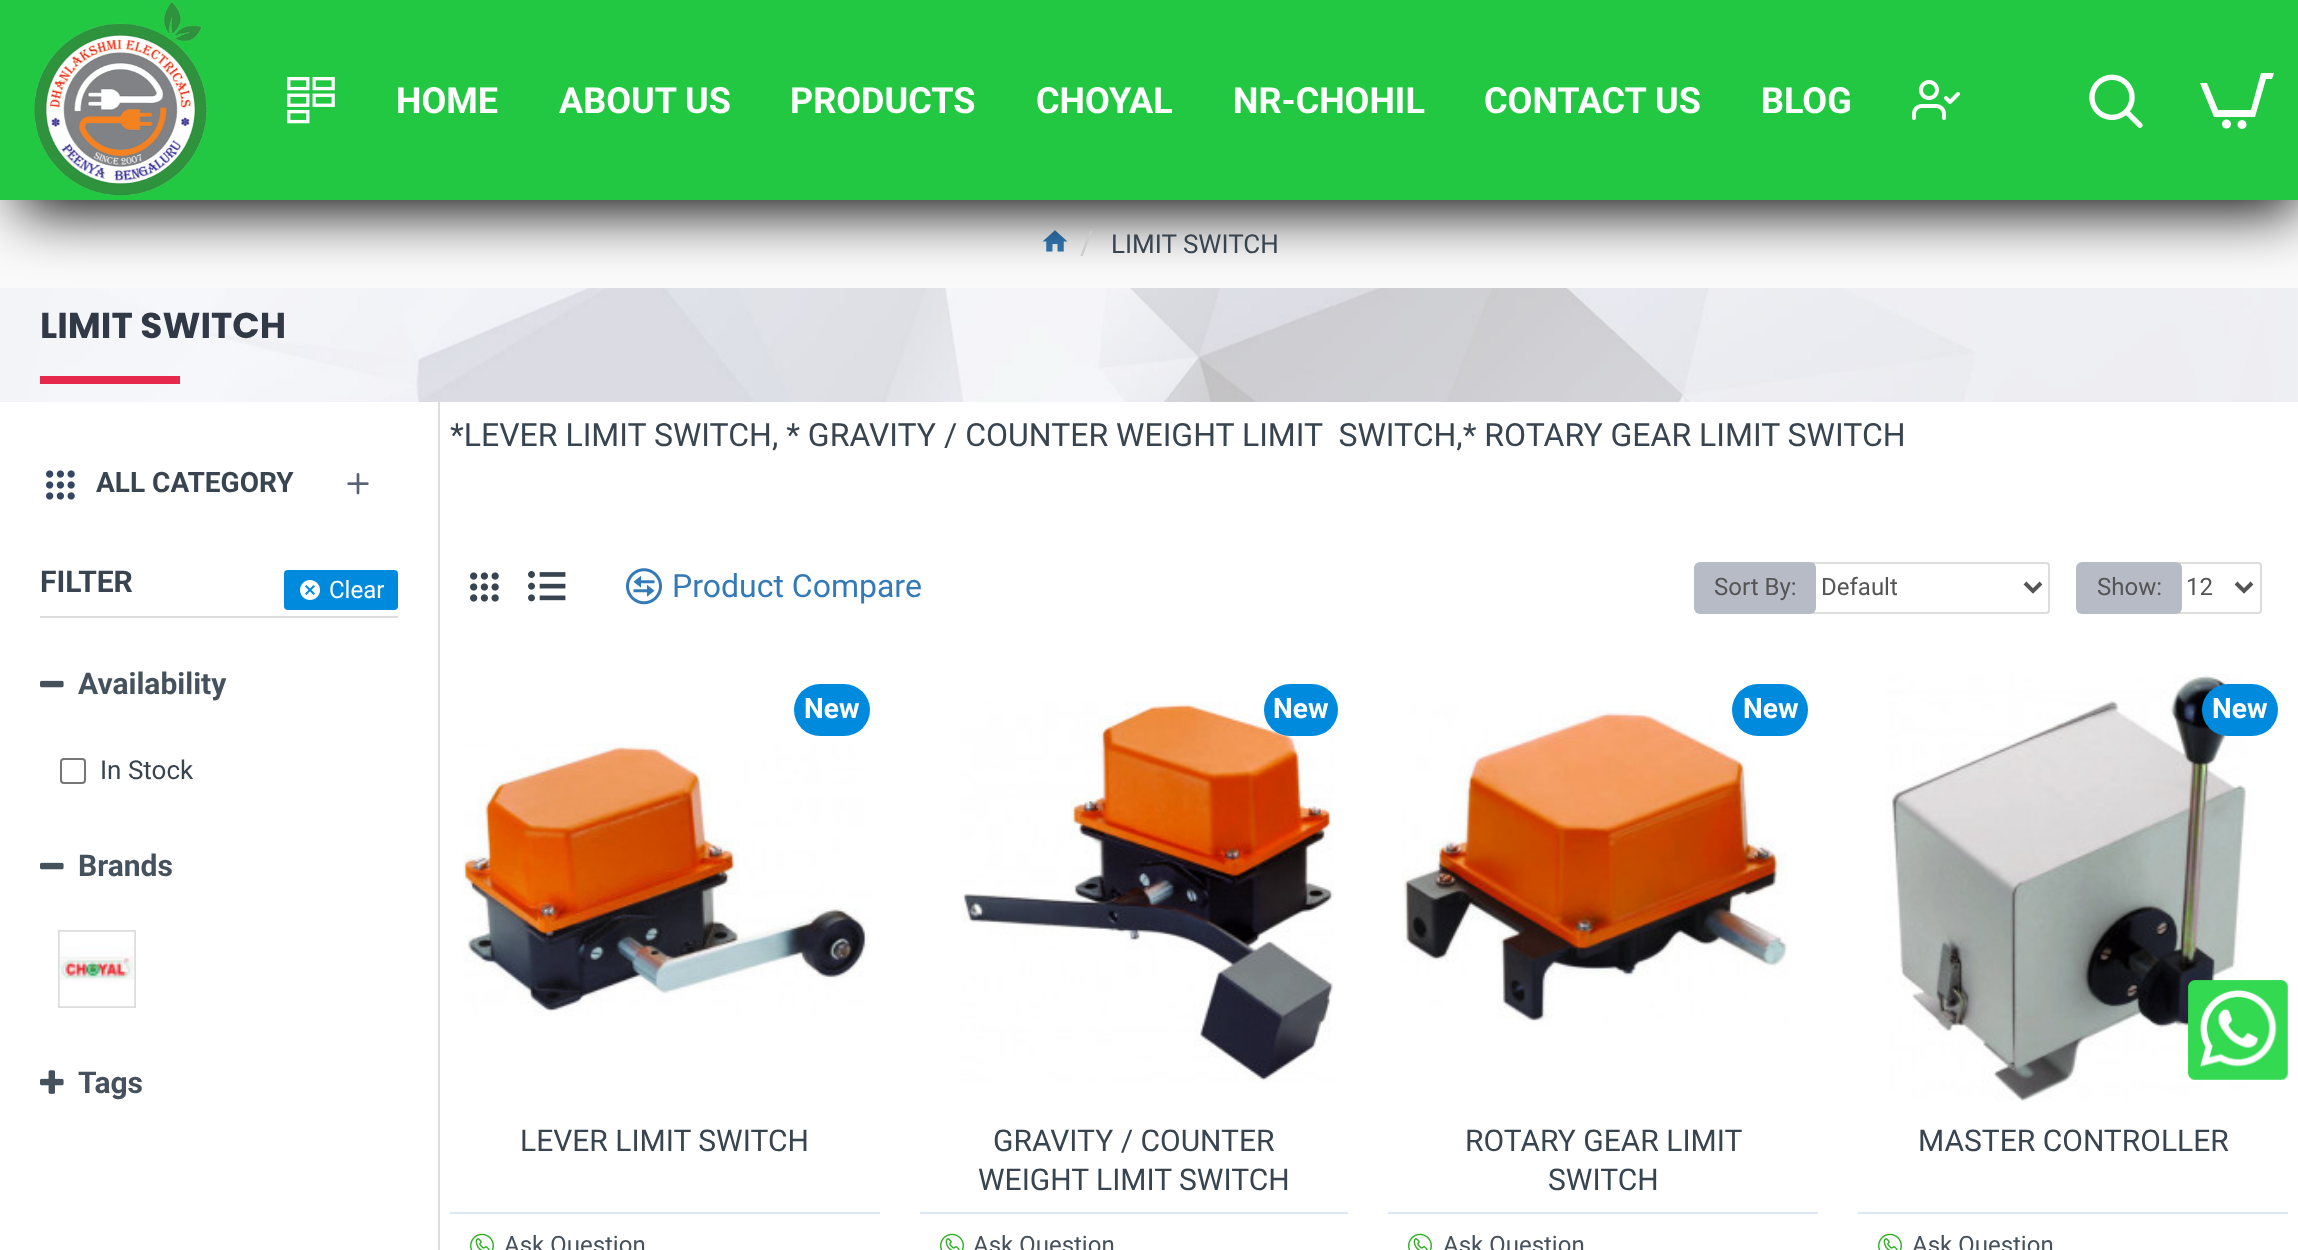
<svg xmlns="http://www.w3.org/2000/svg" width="2298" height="1250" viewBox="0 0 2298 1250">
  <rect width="100%" height="100%" fill="#fff"/>
  <path d="M0 200h2298v88H0z" fill="#fafafa"/>
  <image x="1042" y="230" width="26" height="22" href="img/5.png"/>
  <image x="0" y="288" width="2298" height="114" href="img/6.png"/>
  <path d="M20 30h2278v180H20z" fill="#000" filter="blur(30px)"/>
  <path d="M0 0h2298v200H0z" fill="#23c842"/>
  <image x="34" y="2" width="173" height="194" href="img/1.png"/>
  <image x="287" y="77" width="48" height="47" href="img/2.png"/>
  <image x="1912" y="80" width="48" height="40" href="img/3.png"/>
  <image x="2089" y="74" width="54" height="54" href="img/4.png"/>
  <path d="M2231 124C2231 130 2222 130 2222 124C2222 118 2231 118 2231 124ZM2242 120C2236 120 2236 129 2242 129C2248 129 2248 120 2242 120ZM2261 73L2251 110H2218L2207 83H2200L2214 117H2255L2266 79H2272L2274 73Z" fill="#fff"/>
  <path d="M40 376h140v8H40z" fill="#e7284d"/>
  <path d="M438 402h2v848H438z" fill="#ddd"/>
  <image x="46" y="470" width="29" height="30" href="img/7.png"/>
  <image x="347" y="473" width="22" height="22" href="img/8.png"/>
  <path d="M40 616h358v2H40z" fill="#ddd"/>
  <rect x="284" y="570" width="114" height="40" rx="4" fill="#008add"/>
  <image x="300" y="580" width="20" height="20" href="img/9.png"/>
  <image x="40" y="680" width="24" height="8" href="img/10.png"/>
  <rect x="61" y="759" width="24" height="24" rx="3" fill="none" stroke="#767676" stroke-width="2"/>
  <image x="40" y="862" width="24" height="8" href="img/10.png"/>
  <path d="M59 931h76v76H59z" fill="none" stroke="#ddd" stroke-width="2"/>
  <image x="59" y="931" width="76" height="76" href="img/11.png"/>
  <image x="40" y="1070" width="24" height="24" href="img/12.png"/>
  <image x="470" y="572" width="29" height="30" href="img/13.png"/>
  <image x="528" y="571" width="38" height="31" href="img/14.png"/>
  <image x="626" y="568" width="36" height="37" href="img/15.png"/>
  <rect x="1811" y="563" width="238" height="50" rx="3" fill="none" stroke="#ddd" stroke-width="2"/>
  <rect x="1694" y="562" width="122" height="52" rx="6" fill="#b6bbc6"/>
  <path d="M2025 583L2033 591L2041 583" fill="none" stroke="#555" stroke-width="4"/>
  <rect x="2177" y="563" width="84" height="50" rx="3" fill="none" stroke="#ddd" stroke-width="2"/>
  <rect x="2076" y="562" width="106" height="52" rx="6" fill="#b6bbc6"/>
  <path d="M2236 583L2244 591L2252 583" fill="none" stroke="#555" stroke-width="4"/>
  <rect x="794" y="684" width="76" height="52" rx="26" fill="#008add"/>
  <image x="463" y="743" width="408" height="273" href="img/16.png"/>
  <path d="M450 1212h430v2H450z" fill="#dfe7f7"/>
  <image x="470" y="1233" width="24" height="17" href="img/17.png"/>
  <image x="961" y="701" width="373" height="382" href="img/18.png"/>
  <rect x="1264" y="684" width="74" height="52" rx="26" fill="#008add"/>
  <path d="M920 1212h428v2H920z" fill="#dfe7f7"/>
  <image x="940" y="1233" width="24" height="17" href="img/17.png"/>
  <image x="1402" y="705" width="386" height="321" href="img/19.png"/>
  <rect x="1732" y="684" width="76" height="52" rx="26" fill="#008add"/>
  <path d="M1388 1212h430v2H1388z" fill="#dfe7f7"/>
  <image x="1408" y="1233" width="24" height="17" href="img/17.png"/>
  <image x="1886" y="674" width="361" height="427" href="img/20.png"/>
  <rect x="2202" y="684" width="76" height="52" rx="26" fill="#008add"/>
  <path d="M1858 1212h430v2H1858z" fill="#dfe7f7"/>
  <image x="1878" y="1233" width="24" height="17" href="img/17.png"/>
  <image x="2188" y="980" width="100" height="100" href="img/21.png"/>
  <g font-family="Roboto" font-size="36" font-weight="bold" fill="#fff">
    <text x="396" y="113">HOME</text>
    <text x="559" y="113">ABOUT US</text>
    <text x="790" y="113">PRODUCTS</text>
    <text x="1036" y="113">CHOYAL</text>
    <text x="1233" y="113">NR-CHOHIL</text>
    <text x="1484" y="113">CONTACT US</text>
    <text x="1761" y="113">BLOG</text>
  </g>
  <text x="1080" y="254" font-family="Roboto" font-size="32" fill="#ccc">/</text>
  <text x="1111" y="253" font-family="Roboto" font-size="26" fill="#38444f">LIMIT SWITCH</text>
  <text x="40" y="338" font-family="Poppins" font-size="36" font-weight="bold" fill="#313846">LIMIT SWITCH</text>
  <text x="96" y="492" font-family="Roboto" font-size="28" font-weight="bold" fill="#38444f">ALL CATEGORY</text>
  <text x="40" y="592" font-family="Roboto" font-size="30" font-weight="bold" fill="#38444f">FILTER</text>
  <text x="329" y="598" font-family="Roboto" font-size="24" fill="#fff">Clear</text>
  <text x="78" y="694" font-family="Roboto" font-size="30" font-weight="bold" fill="#45525e">Availability</text>
  <text x="100" y="779" font-family="Roboto" font-size="26" fill="#38444f">In Stock</text>
  <g font-family="Roboto" font-size="30" font-weight="bold" fill="#45525e">
    <text x="78" y="876">Brands</text>
    <text x="78" y="1093">Tags</text>
  </g>
  <text x="450" y="446" font-family="Roboto" font-size="32" fill="#38444f" xml:space="preserve">*LEVER LIMIT SWITCH, * GRAVITY / COUNTER WEIGHT LIMIT  SWITCH,* ROTARY GEAR LIMIT SWITCH</text>
  <text x="672" y="597" font-family="Roboto" font-size="32" fill="#337ab7">Product Compare</text>
  <g font-family="Roboto" font-size="24" fill="#555">
    <text x="1714" y="595">Sort By:</text>
    <text x="1821" y="595">Default</text>
    <text x="2097" y="595">Show:</text>
    <text x="2186" y="595">12</text>
  </g>
  <text x="804" y="718" font-family="Roboto" font-size="28" font-weight="bold" fill="#fff">New</text>
  <text x="520" y="1151" font-family="Roboto" font-size="30" fill="#38444f">LEVER LIMIT SWITCH</text>
  <text x="504" y="1253" font-family="Roboto" font-size="24" fill="#45525e">Ask Question</text>
  <text x="1273" y="718" font-family="Roboto" font-size="28" font-weight="bold" fill="#fff">New</text>
  <g font-family="Roboto" font-size="30" fill="#38444f">
    <text x="993" y="1151">GRAVITY / COUNTER</text>
    <text x="978" y="1190">WEIGHT LIMIT SWITCH</text>
  </g>
  <text x="973" y="1253" font-family="Roboto" font-size="24" fill="#45525e">Ask Question</text>
  <text x="1743" y="718" font-family="Roboto" font-size="28" font-weight="bold" fill="#fff">New</text>
  <g font-family="Roboto" font-size="30" fill="#38444f">
    <text x="1465" y="1151">ROTARY GEAR LIMIT</text>
    <text x="1548" y="1190">SWITCH</text>
  </g>
  <text x="1443" y="1253" font-family="Roboto" font-size="24" fill="#45525e">Ask Question</text>
  <text x="2212" y="718" font-family="Roboto" font-size="28" font-weight="bold" fill="#fff">New</text>
  <text x="1918" y="1151" font-family="Roboto" font-size="30" fill="#38444f">MASTER CONTROLLER</text>
  <text x="1912" y="1253" font-family="Roboto" font-size="24" fill="#45525e">Ask Question</text>
</svg>
